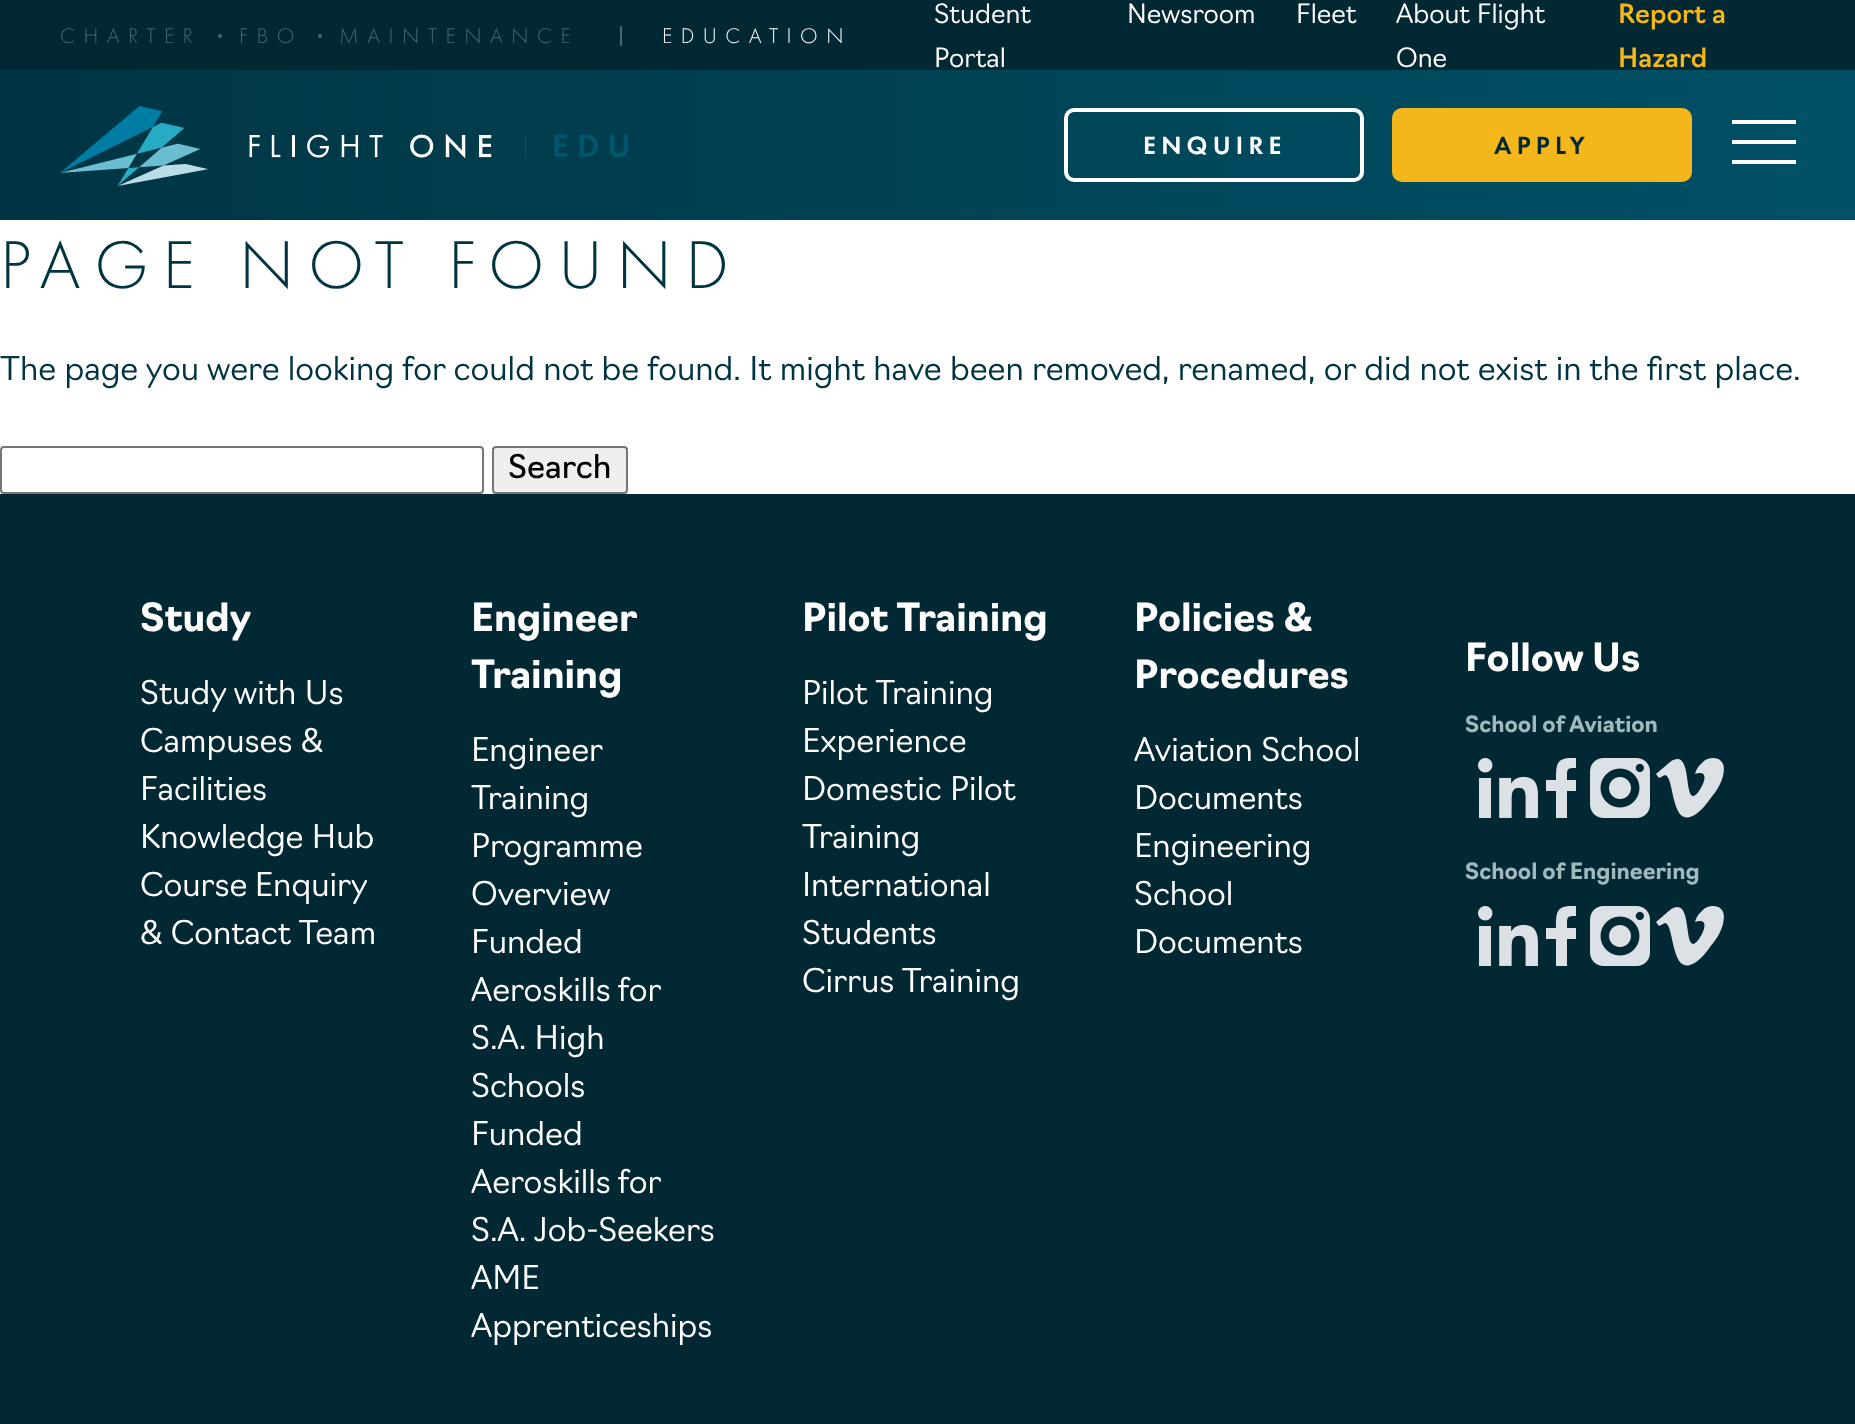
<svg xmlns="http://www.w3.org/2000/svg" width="1855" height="1424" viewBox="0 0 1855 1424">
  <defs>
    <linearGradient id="g1" gradientUnits="userSpaceOnUse" x1="0" y1="145" x2="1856" y2="145"><stop offset="0" stop-color="#003543"/><stop offset="1" stop-color="#005167"/></linearGradient>
    <clipPath id="clip1"><path d="M1546 758h30v60H1546z"/></clipPath>
    <clipPath id="clip2"><path d="M1546 906h30v60H1546z"/></clipPath>
  </defs>
  <rect width="100%" height="100%" fill="#fff"/>
  <path d="M0 0h1855v70H0z" fill="#012833"/>
  <circle cx="220" cy="36" r="2" fill="#4b666e"/>
  <circle cx="320" cy="36" r="2" fill="#4b666e"/>
  <path d="M620 26h2v20H620z" fill="#4b666e"/>
  <path d="M0 70h1855v150H0z" fill="url(#g1)"/>
  <image x="60" y="106" width="568" height="80" href="img/1.png"/>
  <rect x="1066" y="110" width="296" height="70" rx="8" fill="none" stroke="#fff" stroke-width="4"/>
  <rect x="1394" y="110" width="296" height="70" rx="8" fill="#f4b71b" stroke="#f4b71b" stroke-width="4"/>
  <path d="M1732 120h64v4H1732z" fill="#fff"/>
  <path d="M1732 140h64v4H1732z" fill="#fff"/>
  <path d="M1732 160h64v4H1732z" fill="#fff"/>
  <rect x="1" y="447" width="482" height="46" rx="3" fill="none" stroke="#767676" stroke-width="2"/>
  <rect x="493" y="447" width="134" height="46" rx="3" fill="#efefef" stroke="#767676" stroke-width="2"/>
  <path d="M0 494h1855v930H0z" fill="#012833"/>
  <image x="1478" y="758" width="60" height="60" href="img/2.png"/>
  <g clip-path="url(#clip1)">
    <path d="M1572 758H1578V768C1566 768 1567 768 1567 780H1577L1576 791H1567V818H1556V791H1546V780H1556C1556 765 1556 758 1572 758Z" fill="#dbe1e5"/>
  </g>
  <image x="1590" y="758" width="60" height="60" href="img/3.png"/>
  <path d="M1656 774L1670 762C1692 747 1684 795 1693 796C1698 797 1715 767 1695 774C1696 770 1698 766 1702 763C1706 758 1716 756 1721 761C1725 765 1724 771 1723 776C1721 784 1716 792 1710 799C1705 806 1699 814 1690 817C1671 823 1674 776 1665 775L1659 778Z" fill="#dbe1e5"/>
  <image x="1478" y="906" width="60" height="60" href="img/2.png"/>
  <g clip-path="url(#clip2)">
    <path d="M1572 906H1578V916C1566 916 1567 916 1567 928H1577L1576 939H1567V966H1556V939H1546V928H1556C1556 913 1556 906 1572 906Z" fill="#dbe1e5"/>
  </g>
  <image x="1590" y="906" width="60" height="60" href="img/3.png"/>
  <path d="M1656 922L1670 910C1692 895 1684 943 1693 944C1698 945 1715 915 1695 922C1696 918 1698 914 1702 911C1706 906 1716 904 1721 909C1725 913 1724 919 1723 924C1721 932 1716 940 1710 947C1705 954 1699 962 1690 965C1671 971 1674 924 1665 923L1659 926Z" fill="#dbe1e5"/>
  <g font-family="Futura PT" font-size="22" font-weight="300" letter-spacing="8.5" fill="#4b666e">
    <text x="60" y="43">CHARTER</text>
    <text x="239" y="43">FBO</text>
    <text x="339" y="43">MAINTENANCE</text>
  </g>
  <text x="662" y="43" font-family="Futura PT" font-size="22" font-weight="300" letter-spacing="8.5" fill="#fff">EDUCATION</text>
  <g font-family="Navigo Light" font-size="26" font-weight="300" fill="#fff">
    <text x="934" y="23">Student</text>
    <text x="934" y="67">Portal</text>
    <text x="1127" y="23">Newsroom</text>
    <text x="1296" y="23">Fleet</text>
    <text x="1396" y="23">About Flight</text>
    <text x="1396" y="67">One</text>
  </g>
  <g font-family="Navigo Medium" font-size="26" font-weight="500" fill="#f4b71b">
    <text x="1618" y="23">Report a</text>
    <text x="1618" y="67">Hazard</text>
  </g>
  <text x="1143" y="154" font-family="Futura PT" font-size="26" font-weight="500" letter-spacing="5.25" fill="#fff">ENQUIRE</text>
  <text x="1494" y="154" font-family="Futura PT" font-size="26" font-weight="500" letter-spacing="5.25" fill="#012833">APPLY</text>
  <text x="0" y="288" font-family="Futura PT" font-size="70" font-weight="300" letter-spacing="14" fill="#013442">PAGE NOT FOUND</text>
  <text x="0" y="380" font-family="Navigo Light" font-size="32" font-weight="300" fill="#013442">The page you were looking for could not be found. It might have been removed, renamed, or did not exist in the first place.</text>
  <text x="508" y="478" font-family="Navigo" font-size="32" fill="#000">Search</text>
  <text x="140" y="631" font-family="Navigo" font-size="38" font-weight="bold" fill="#fff">Study</text>
  <g font-family="Navigo Light" font-size="32" font-weight="300" fill="#fff">
    <text x="140" y="704">Study with Us</text>
    <text x="140" y="752">Campuses &amp;</text>
    <text x="140" y="800">Facilities</text>
    <text x="140" y="848">Knowledge Hub</text>
    <text x="140" y="896" word-spacing="-1">Course Enquiry</text>
    <text x="140" y="944">&amp; Contact Team</text>
  </g>
  <g font-family="Navigo" font-size="38" font-weight="bold" fill="#fff">
    <text x="471" y="631">Engineer</text>
    <text x="471" y="688">Training</text>
  </g>
  <g font-family="Navigo Light" font-size="32" font-weight="300" fill="#fff">
    <text x="471" y="761">Engineer</text>
    <text x="471" y="809">Training</text>
    <text x="471" y="857">Programme</text>
    <text x="471" y="905">Overview</text>
    <text x="471" y="953">Funded</text>
    <text x="471" y="1001" word-spacing="-1">Aeroskills for</text>
    <text x="471" y="1049">S.A. High</text>
    <text x="471" y="1097">Schools</text>
    <text x="471" y="1145">Funded</text>
    <text x="471" y="1193" word-spacing="-1">Aeroskills for</text>
    <text x="471" y="1241">S.A. Job-Seekers</text>
    <text x="471" y="1289">AME</text>
    <text x="471" y="1337">Apprenticeships</text>
  </g>
  <text x="802" y="631" font-family="Navigo" font-size="38" font-weight="bold" fill="#fff">Pilot Training</text>
  <g font-family="Navigo Light" font-size="32" font-weight="300" fill="#fff">
    <text x="802" y="704">Pilot Training</text>
    <text x="802" y="752">Experience</text>
    <text x="802" y="800">Domestic Pilot</text>
    <text x="802" y="848">Training</text>
    <text x="802" y="896">International</text>
    <text x="802" y="944">Students</text>
    <text x="802" y="992">Cirrus Training</text>
  </g>
  <g font-family="Navigo" font-size="38" font-weight="bold" fill="#fff">
    <text x="1134" y="631">Policies &amp;</text>
    <text x="1134" y="688">Procedures</text>
  </g>
  <g font-family="Navigo Light" font-size="32" font-weight="300" fill="#fff">
    <text x="1134" y="761">Aviation School</text>
    <text x="1134" y="809">Documents</text>
    <text x="1134" y="857">Engineering</text>
    <text x="1134" y="905">School</text>
    <text x="1134" y="953">Documents</text>
  </g>
  <text x="1465" y="671" font-family="Navigo" font-size="38" font-weight="bold" fill="#fff">Follow Us</text>
  <g font-family="Navigo" font-size="22" font-weight="bold" fill="#a0b9bf">
    <text x="1465" y="732">School of Aviation</text>
    <text x="1465" y="879">School of Engineering</text>
  </g>
</svg>
